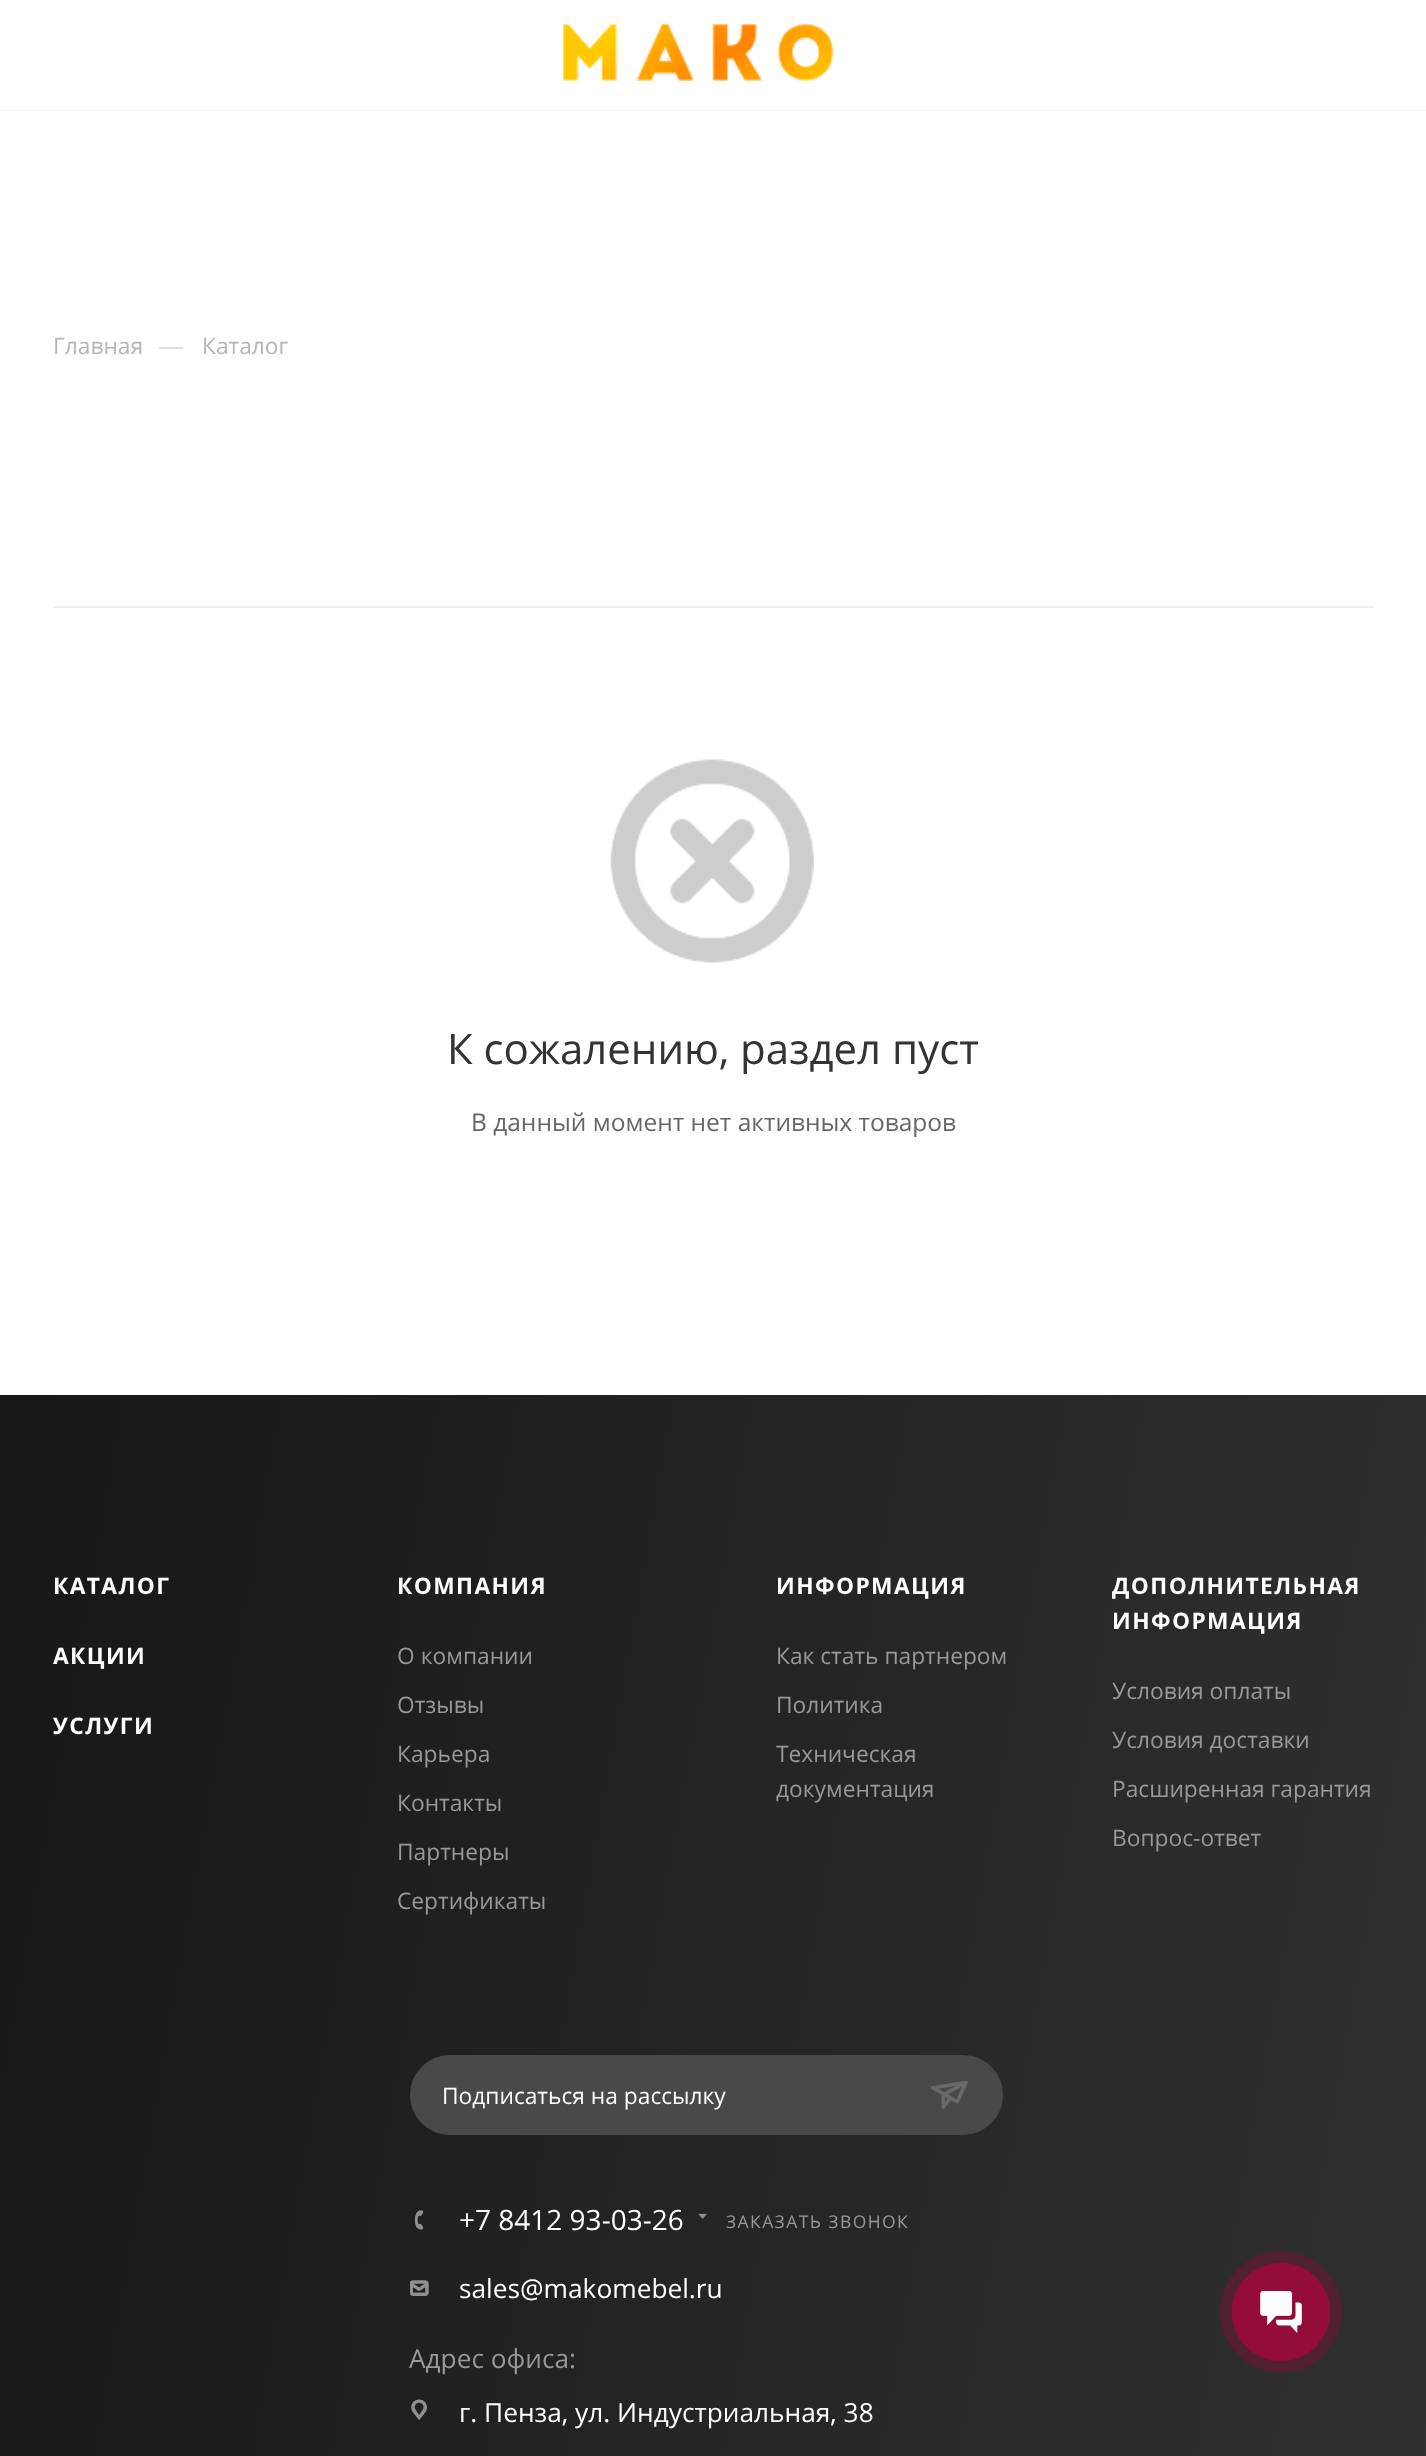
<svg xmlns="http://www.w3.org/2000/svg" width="1426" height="2456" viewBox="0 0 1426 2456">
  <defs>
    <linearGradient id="g1" gradientUnits="userSpaceOnUse" x1="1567" y1="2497" x2="-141" y2="2195"><stop offset="0" stop-color="#333"/><stop offset="1" stop-color="#161719"/></linearGradient>
  </defs>
  <rect width="100%" height="100%" fill="#fff"/>
  <path d="M0 109h1426v2H0z" fill="#f8f8f8"/>
  <image x="563" y="24" width="271" height="58" href="img/1.png"/>
  <path d="M53 606h1321v2H53z" fill="#eee"/>
  <image x="610" y="759" width="204" height="204" href="img/2.png"/>
  <path d="M0 1395h1426v1061H0z" fill="url(#g1)"/>
  <rect x="411" y="2056" width="591" height="78" rx="39" fill="#494949" stroke="#494949" stroke-width="2"/>
  <image x="931" y="2081" width="37" height="28" href="img/3.png"/>
  <image x="415" y="2210" width="9" height="20" href="img/4.png"/>
  <image x="698" y="2213" width="9" height="6" href="img/5.png"/>
  <image x="410" y="2280" width="19" height="16" href="img/6.png"/>
  <image x="411" y="2399" width="16" height="21" href="img/7.png"/>
  <circle cx="1281" cy="2312" r="61" fill="#422730"/>
  <circle cx="1281" cy="2312" r="48.5" fill="none" stroke="#940c39"/>
  <circle cx="1281" cy="2312" r="61" fill="#940c3933"/>
  <circle cx="1281" cy="2312" r="48.5" fill="none" stroke="#940c39"/>
  <circle cx="1281" cy="2312" r="49" fill="#940c39"/>
  <image x="1260" y="2291" width="42" height="42" href="img/8.png"/>
  <text x="53" y="354" font-family="Open Sans" font-size="22.75" fill="#b6b5b5">Главная</text>
  <text x="158" y="355" font-family="Open Sans" font-size="26.25" fill="#ddd">—</text>
  <text x="202" y="354" font-family="Open Sans" font-size="22.75" fill="#b6b5b5">Каталог</text>
  <text x="447" y="1064" font-family="Open Sans" font-size="42" fill="#333">К сожалению, раздел пуст</text>
  <text x="471" y="1131" font-family="Open Sans" font-size="24.5" fill="#666">В данный момент нет активных товаров</text>
  <g font-family="Open Sans" font-size="22.75" font-weight="bold" letter-spacing="1.4" fill="#fff">
    <text x="53" y="1594">КАТАЛОГ</text>
    <text x="53" y="1664">АКЦИИ</text>
    <text x="53" y="1734">УСЛУГИ</text>
    <text x="397" y="1594">КОМПАНИЯ</text>
  </g>
  <g font-family="Open Sans" font-size="22.75" fill="#999">
    <text x="397" y="1664">О компании</text>
    <text x="397" y="1713">Отзывы</text>
    <text x="397" y="1762">Карьера</text>
    <text x="397" y="1811">Контакты</text>
    <text x="397" y="1860">Партнеры</text>
    <text x="397" y="1909">Сертификаты</text>
  </g>
  <text x="776" y="1594" font-family="Open Sans" font-size="22.75" font-weight="bold" letter-spacing="1.4" fill="#fff">ИНФОРМАЦИЯ</text>
  <g font-family="Open Sans" font-size="22.75" fill="#999">
    <text x="776" y="1664">Как стать партнером</text>
    <text x="776" y="1713">Политика</text>
    <text x="776" y="1762">Техническая</text>
    <text x="776" y="1797">документация</text>
  </g>
  <g font-family="Open Sans" font-size="22.75" font-weight="bold" letter-spacing="1.4" fill="#fff">
    <text x="1112" y="1594">ДОПОЛНИТЕЛЬНАЯ</text>
    <text x="1112" y="1629">ИНФОРМАЦИЯ</text>
  </g>
  <g font-family="Open Sans" font-size="22.75" fill="#999">
    <text x="1112" y="1699">Условия оплаты</text>
    <text x="1112" y="1748">Условия доставки</text>
    <text x="1112" y="1797">Расширенная гарантия</text>
    <text x="1112" y="1846">Вопрос-ответ</text>
  </g>
  <text x="442" y="2104" font-family="Open Sans" font-size="22.75" fill="#fff">Подписаться на рассылку</text>
  <text x="459" y="2230" font-family="Open Sans" font-size="28" fill="#fff">+7 8412 93-03-26</text>
  <text x="726" y="2228" font-family="Open Sans" font-size="17.5" letter-spacing="1.4" fill="#999">ЗАКАЗАТЬ ЗВОНОК</text>
  <text x="459" y="2298" font-family="Open Sans" font-size="26.25" fill="#fff">sales@makomebel.ru</text>
  <text x="409" y="2368" font-family="Open Sans" font-size="26.25" fill="#999">Адрес офиса:</text>
  <text x="459" y="2422" font-family="Open Sans" font-size="26.25" fill="#fff">г. Пенза, ул. Индустриальная, 38</text>
</svg>
